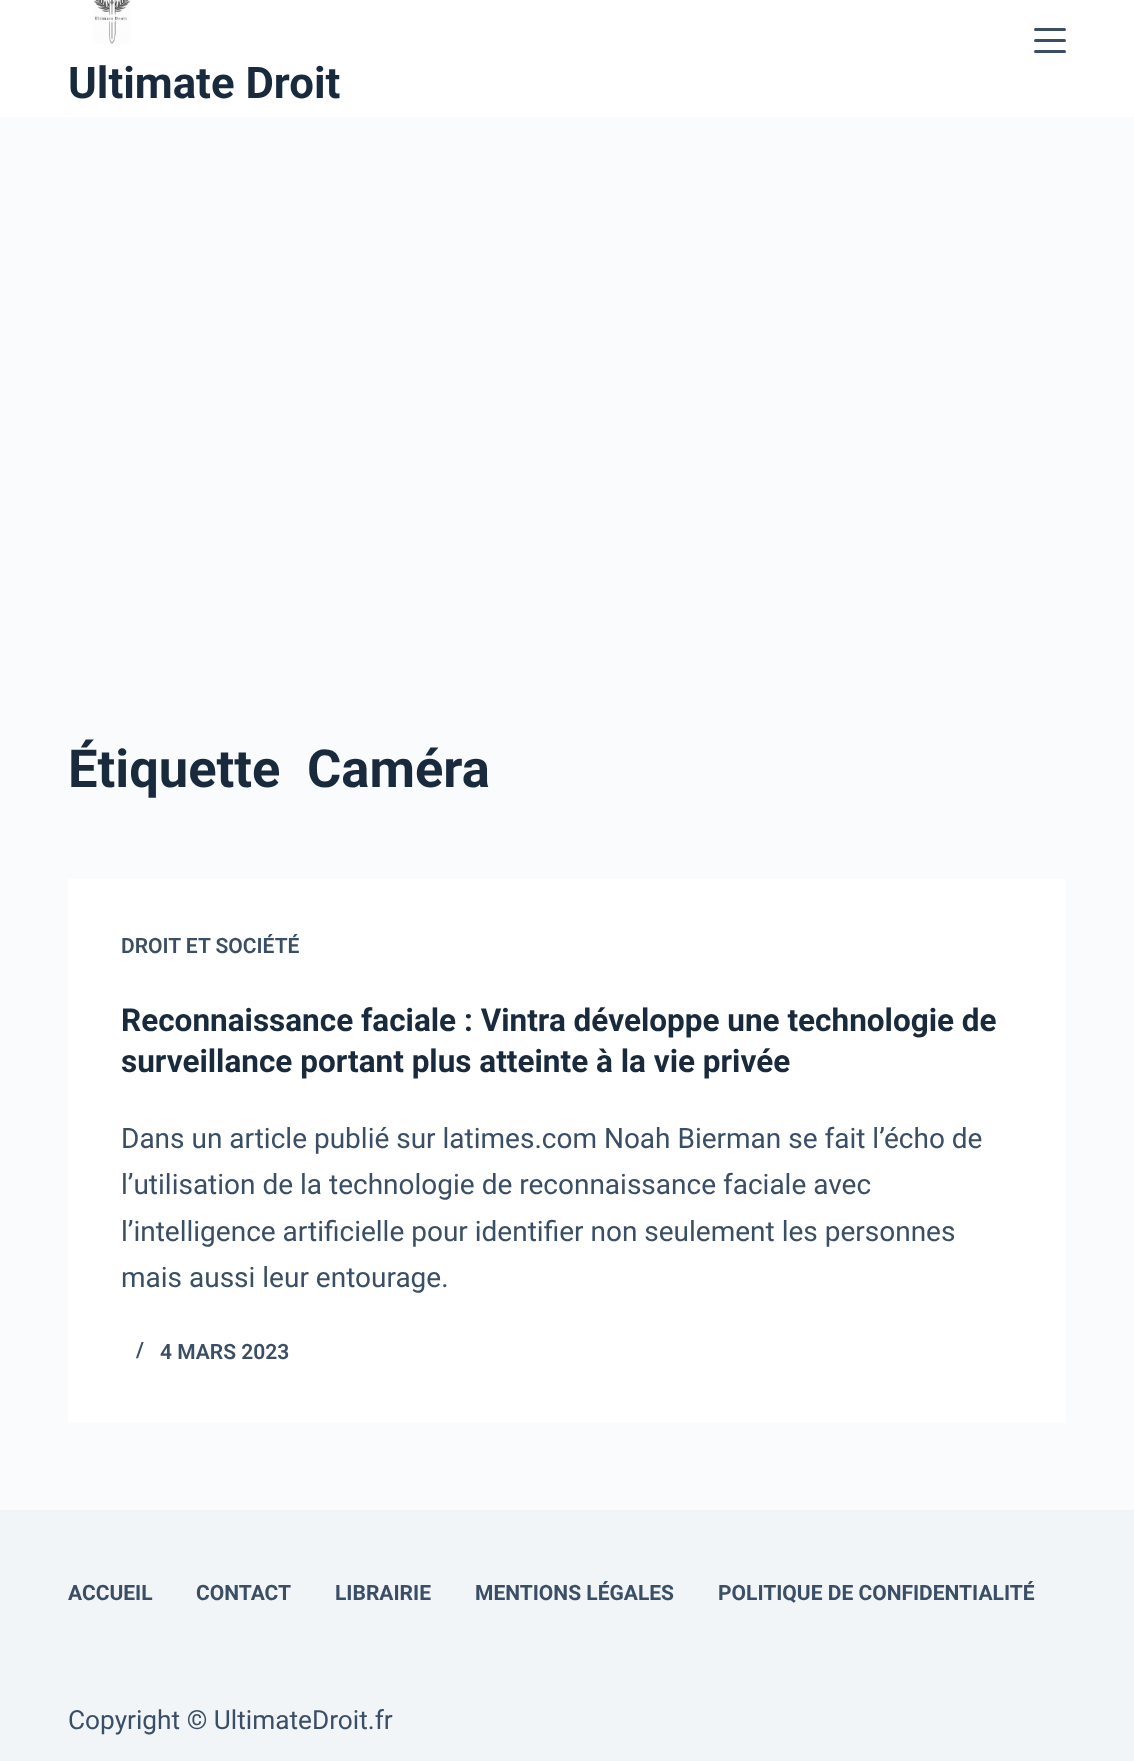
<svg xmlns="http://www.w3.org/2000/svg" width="1134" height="1761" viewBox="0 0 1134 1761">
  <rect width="100%" height="100%" fill="#fafbfc"/>
  <path d="M0 0h1134v117H0z" fill="#fff"/>
  <rect x="1034" y="28" width="32" height="3" rx="1.5" fill="#3a4f66"/>
  <rect x="1034" y="39" width="32" height="3" rx="1.5" fill="#3a4f66"/>
  <rect x="1034" y="50" width="32" height="3" rx="1.5" fill="#3a4f66"/>
  <image x="93" y="0" width="38" height="44" href="img/1.png"/>
  <path d="M68 879h998v544H68z" fill="#fff"/>
  <path d="M0 1510h1134v251H0z" fill="#f2f5f7"/>
  <text x="68" y="98" font-family="Roboto" font-size="43.75" font-weight="bold" fill="#192a3d">Ultimate Droit</text>
  <g font-family="Roboto" font-size="52.5" font-weight="bold" fill="#192a3d">
    <text x="68" y="787">Étiquette</text>
    <text x="307" y="787">Caméra</text>
  </g>
  <text x="121" y="953" font-family="Roboto" font-size="21" font-weight="600" fill="#3a4f66">DROIT ET SOCIÉTÉ</text>
  <g font-family="Roboto" font-size="31.5" font-weight="bold" fill="#192a3d">
    <text x="121" y="1031">Reconnaissance faciale : Vintra développe une technologie de</text>
    <text x="121" y="1072">surveillance portant plus atteinte à la vie privée</text>
  </g>
  <g font-family="Roboto" font-size="28" fill="#3a4f66">
    <text x="121" y="1148">Dans un article publié sur latimes.com Noah Bierman se fait l’écho de</text>
    <text x="121" y="1194">l’utilisation de la technologie de reconnaissance faciale avec</text>
    <text x="121" y="1241">l’intelligence artificielle pour identifier non seulement les personnes</text>
    <text x="121" y="1287">mais aussi leur entourage.</text>
  </g>
  <g font-family="Roboto" font-size="21" font-weight="600" fill="#3a4f66">
    <text x="136" y="1357">/</text>
    <text x="160" y="1359">4 MARS 2023</text>
  </g>
  <g font-family="Roboto" font-size="21" font-weight="bold" fill="#3a4f66">
    <text x="68" y="1600">ACCUEIL</text>
    <text x="196" y="1600">CONTACT</text>
    <text x="335" y="1600">LIBRAIRIE</text>
    <text x="475" y="1600">MENTIONS LÉGALES</text>
    <text x="718" y="1600">POLITIQUE DE CONFIDENTIALITÉ</text>
  </g>
  <text x="68" y="1729" font-family="Roboto" font-size="26.25" fill="#3a4f66">Copyright © UltimateDroit.fr</text>
</svg>
